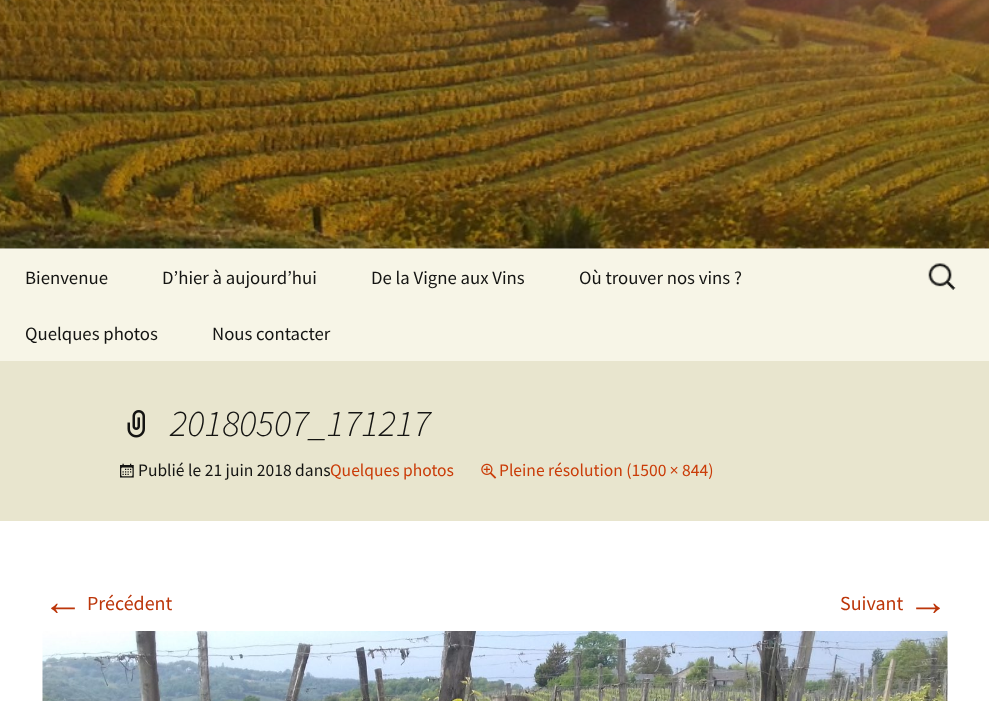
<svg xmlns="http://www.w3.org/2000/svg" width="989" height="701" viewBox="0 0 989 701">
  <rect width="100%" height="100%" fill="#fff"/>
  <image x="0" y="0" width="989" height="249" href="img/1.png"/>
  <path d="M0 249h989v112H0z" fill="#f7f5e7"/>
  <image x="928" y="263" width="28" height="27" href="img/2.png"/>
  <path d="M0 361h989v160H0z" fill="#e8e5ce"/>
  <image x="127" y="410" width="18" height="28" href="img/3.png"/>
  <image x="120" y="463" width="14" height="15" href="img/4.png"/>
  <image x="481" y="463" width="16" height="16" href="img/5.png"/>
  <image x="42" y="631" width="906" height="70" href="img/6.png"/>
  <g font-family="Source Sans Pro" font-size="18.75" fill="#141412">
    <text x="25" y="284">Bienvenue</text>
    <text x="162" y="284">D’hier à aujourd’hui</text>
    <text x="371" y="284">De la Vigne aux Vins</text>
    <text x="579" y="284">Où trouver nos vins ?</text>
    <text x="25" y="340">Quelques photos</text>
    <text x="212" y="340">Nous contacter</text>
  </g>
  <text x="170" y="436" font-family="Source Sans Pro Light" font-size="37.5" font-weight="300" font-style="italic" fill="#141412">20180507_171217</text>
  <text x="138" y="476" font-family="Source Sans Pro" font-size="17.5" fill="#141412">Publié le 21 juin 2018 dans</text>
  <g font-family="Source Sans Pro" font-size="17.5" fill="#ca3c08">
    <text x="330" y="476">Quelques photos</text>
    <text x="499" y="476">Pleine résolution (1500 × 844)</text>
  </g>
  <text x="43" y="615" font-family="Liberation Sans" font-size="40" fill="#bc360a">←</text>
  <g font-family="Source Sans Pro" font-size="20" fill="#bc360a">
    <text x="87" y="610">Précédent</text>
    <text x="840" y="610">Suivant</text>
  </g>
  <text x="908" y="615" font-family="Liberation Sans" font-size="40" fill="#bc360a">→</text>
</svg>
